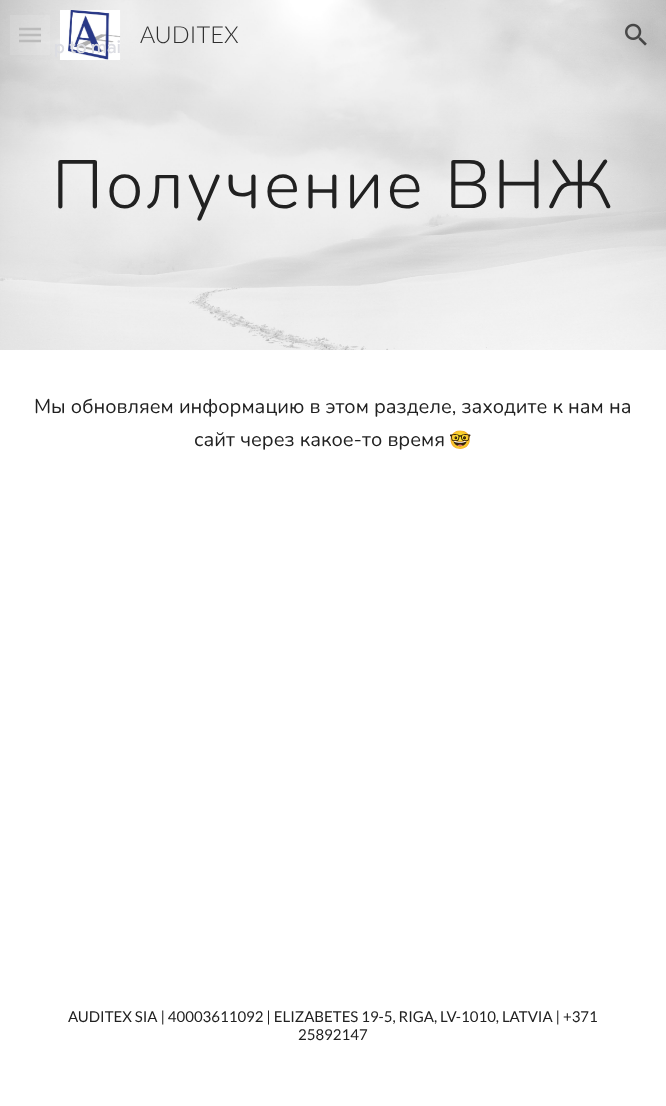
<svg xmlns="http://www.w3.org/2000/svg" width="666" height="1106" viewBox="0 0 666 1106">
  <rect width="100%" height="100%" fill="#fff"/>
  <image x="0" y="0" width="666" height="350" href="img/3.png"/>
  <path d="M19 29H41M19 35H41M19 41H41" fill="none" stroke="#b2b2b2" stroke-width="2.5"/>
  <path d="M10 15h40v40H10z" fill="#ffffff1f"/>
  <image x="60" y="10" width="61" height="50" href="img/1.png"/>
  <image x="625" y="23" width="22" height="23" href="img/2.png"/>
  <text x="140" y="43" font-family="Lato" font-size="23.5" font-weight="300" fill="#2f2f2f">AUDITEX</text>
  <text x="52" y="208" font-family="Nunito" font-size="68.25" font-weight="300" letter-spacing="2.5" fill="#212121">Получение ВНЖ</text>
  <g font-family="Nunito" font-size="20" fill="#212121">
    <text x="34" y="413">Мы обновляем информацию в этом разделе, заходите к нам на</text>
    <text x="194" y="446">сайт через какое-то время</text>
  </g>
  <text x="449" y="446" font-family="Noto Color Emoji" font-size="18" fill="#212121">🤓</text>
  <g font-family="Lato" font-size="15" fill="#212121">
    <text x="68" y="1022">AUDITEX SIA | 40003611092 | ELIZABETES 19-5, RIGA, LV-1010, LATVIA | +371</text>
    <text x="298" y="1040">25892147</text>
  </g>
  <text x="54" y="53" font-family="Google Sans" font-size="17.5" font-weight="500" letter-spacing="0.25" fill="#dcdde3">p to mai</text>
</svg>
